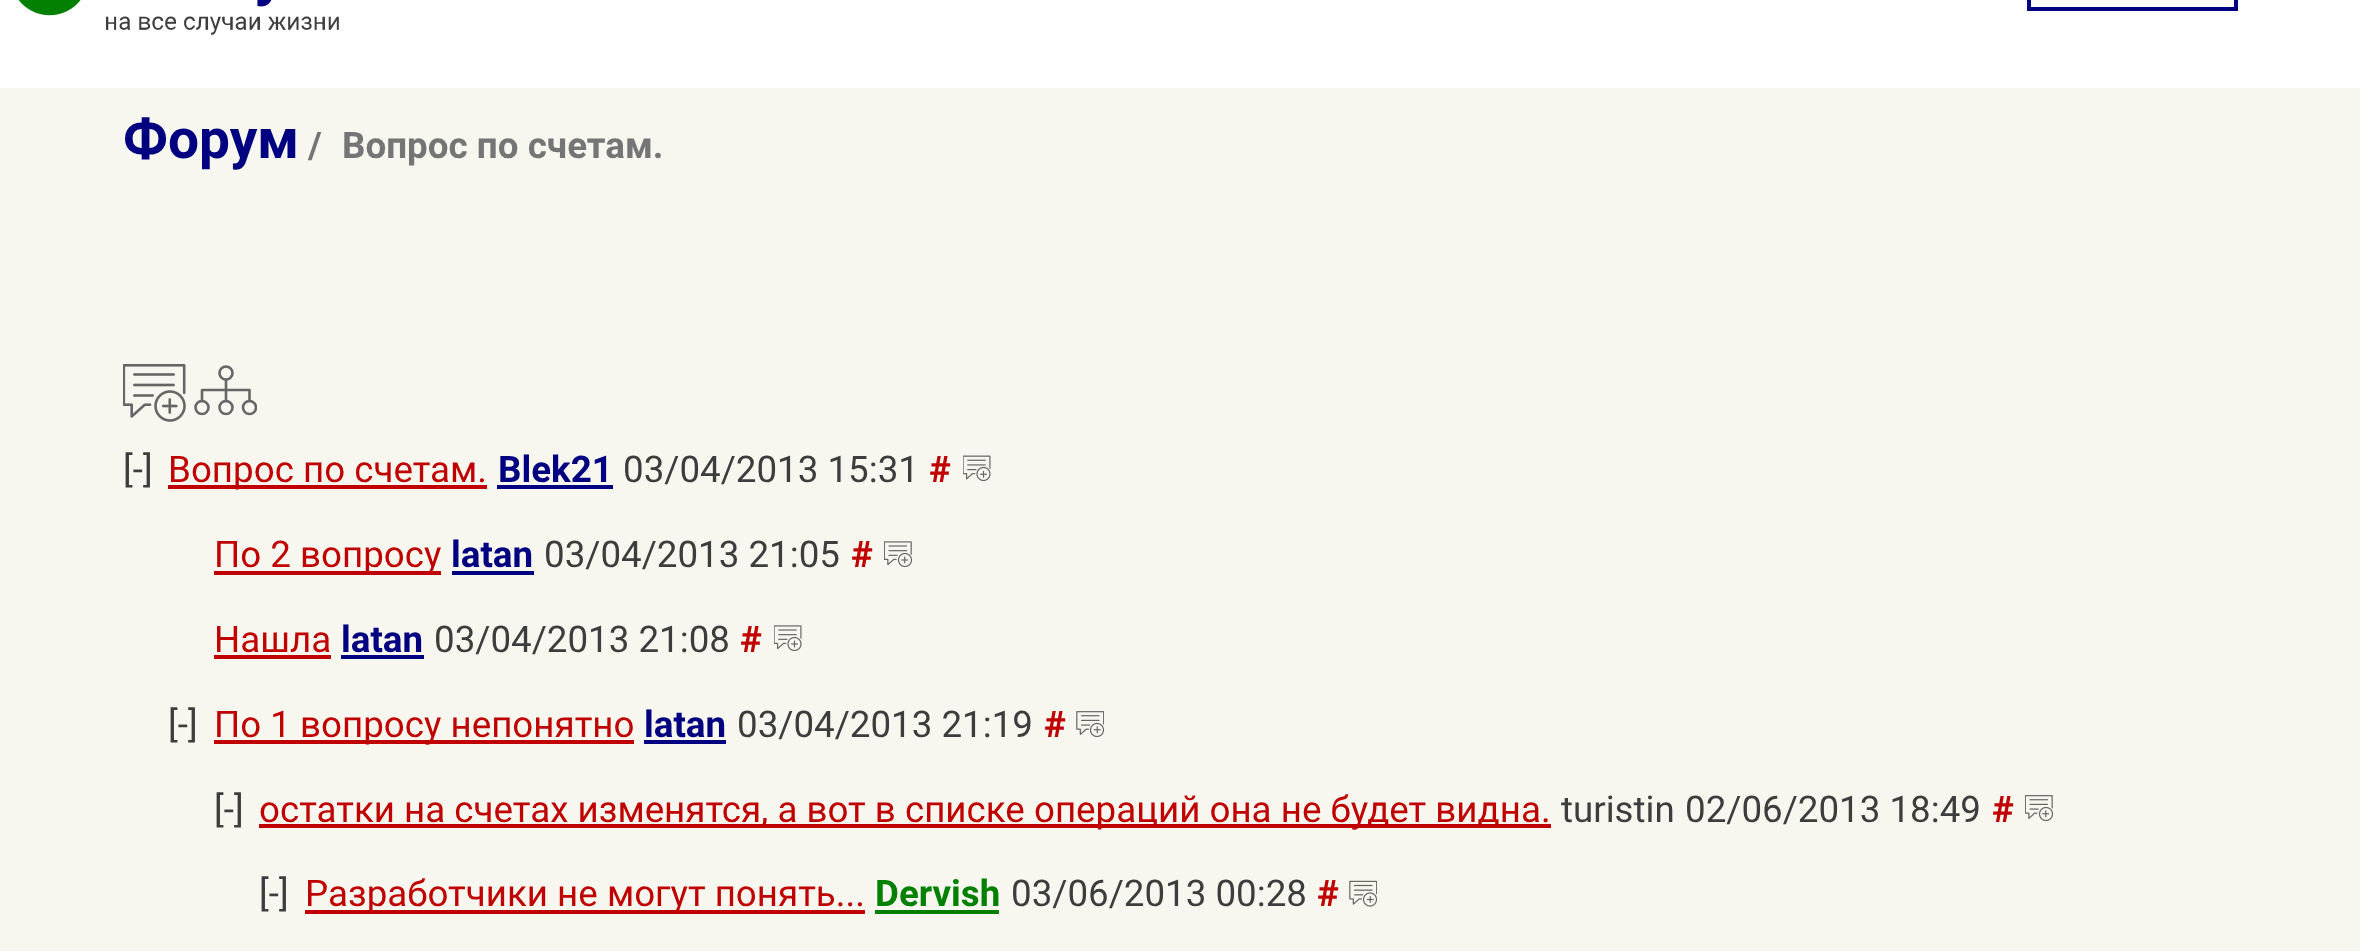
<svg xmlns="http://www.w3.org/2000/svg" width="2360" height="951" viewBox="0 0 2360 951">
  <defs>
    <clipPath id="clip1"><path d="M194 359h63v63H194z"/></clipPath>
  </defs>
  <rect width="100%" height="100%" fill="#f7f7ef"/>
  <path d="M0 0h2360v88H0z" fill="#fff"/>
  <image x="18" y="0" width="321" height="35" href="img/1.png"/>
  <path d="M2029 -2h207v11H2029z" fill="none" stroke="#000080" stroke-width="4"/>
  <image x="123" y="364" width="63" height="58" href="img/2.png"/>
  <circle cx="226" cy="373" r="6.5" fill="none" stroke="#666" stroke-width="2.6"/>
  <circle cx="202" cy="407.5" r="6.5" fill="none" stroke="#666" stroke-width="2.6"/>
  <circle cx="226" cy="407.5" r="6.5" fill="none" stroke="#666" stroke-width="2.6"/>
  <g clip-path="url(#clip1)">
    <circle cx="249.5" cy="407.5" r="6.5" fill="none" stroke="#666" stroke-width="2.6"/>
  </g>
  <path d="M226 401V380M202 401V390H249.5V401" fill="none" stroke="#666" stroke-width="2.6" stroke-linecap="round" stroke-linejoin="round"/>
  <path d="M168 485h319v4H168z" fill="#c00000"/>
  <path d="M497 485h116v4H497z" fill="#000080"/>
  <image x="963" y="455" width="28" height="26" href="img/3.png"/>
  <path d="M214 571h227v4H214z" fill="#c00000"/>
  <path d="M452 571h82v4H452z" fill="#000080"/>
  <image x="884" y="541" width="28" height="26" href="img/4.png"/>
  <path d="M214 655h117v4H214z" fill="#c00000"/>
  <path d="M341 655h83v4H341z" fill="#000080"/>
  <image x="774" y="625" width="28" height="26" href="img/5.png"/>
  <path d="M214 740h420v4H214z" fill="#c00000"/>
  <path d="M644 740h82v4H644z" fill="#000080"/>
  <image x="1076" y="711" width="28" height="26" href="img/6.png"/>
  <path d="M259 824h1292v4H259z" fill="#c00000"/>
  <image x="2025" y="795" width="28" height="26" href="img/7.png"/>
  <path d="M305 910h560v4H305z" fill="#c00000"/>
  <path d="M875 910h124v4H875z" fill="#018001"/>
  <image x="1349" y="880" width="28" height="27" href="img/8.png"/>
  <text x="123" y="158" font-family="Roboto" font-size="55" font-weight="bold" fill="#000080">Форум</text>
  <g font-family="Roboto" font-size="36.75" font-weight="bold" fill="#757575">
    <text x="308" y="158">/</text>
    <text x="342" y="158">Вопрос по счетам.</text>
  </g>
  <text x="123" y="482" font-family="Roboto" font-size="36.75" fill="#3d3d3d">[-]</text>
  <text x="168" y="482" font-family="Roboto" font-size="36.75" fill="#c00000">Вопрос по счетам.</text>
  <text x="498" y="482" font-family="Roboto" font-size="36.75" font-weight="bold" fill="#000080">Blek21</text>
  <text x="623" y="482" font-family="Roboto" font-size="36.75" fill="#3d3d3d">03/04/2013 15:31</text>
  <text x="929" y="482" font-family="Roboto" font-size="36.75" font-weight="bold" fill="#c00000">#</text>
  <text x="214" y="567" font-family="Roboto" font-size="36.75" fill="#c00000">По 2 вопросу</text>
  <text x="451" y="567" font-family="Roboto" font-size="36.75" font-weight="bold" fill="#000080">latan</text>
  <text x="544" y="567" font-family="Roboto" font-size="36.75" fill="#3d3d3d">03/04/2013 21:05</text>
  <text x="851" y="567" font-family="Roboto" font-size="36.75" font-weight="bold" fill="#c00000">#</text>
  <text x="214" y="652" font-family="Roboto" font-size="36.75" fill="#c00000">Нашла</text>
  <text x="341" y="652" font-family="Roboto" font-size="36.75" font-weight="bold" fill="#000080">latan</text>
  <text x="434" y="652" font-family="Roboto" font-size="36.75" fill="#3d3d3d">03/04/2013 21:08</text>
  <text x="740" y="652" font-family="Roboto" font-size="36.75" font-weight="bold" fill="#c00000">#</text>
  <text x="168" y="737" font-family="Roboto" font-size="36.75" fill="#3d3d3d">[-]</text>
  <text x="214" y="737" font-family="Roboto" font-size="36.75" fill="#c00000">По 1 вопросу непонятно</text>
  <text x="644" y="737" font-family="Roboto" font-size="36.75" font-weight="bold" fill="#000080">latan</text>
  <text x="737" y="737" font-family="Roboto" font-size="36.75" fill="#3d3d3d">03/04/2013 21:19</text>
  <text x="1044" y="737" font-family="Roboto" font-size="36.75" font-weight="bold" fill="#c00000">#</text>
  <text x="214" y="822" font-family="Roboto" font-size="36.75" fill="#3d3d3d">[-]</text>
  <text x="259" y="822" font-family="Roboto" font-size="36.75" fill="#c00000">остатки на счетах изменятся, а вот в списке операций она не будет видна.</text>
  <g font-family="Roboto" font-size="36.75" fill="#3d3d3d">
    <text x="1561" y="822">turistin</text>
    <text x="1685" y="822">02/06/2013 18:49</text>
  </g>
  <text x="1992" y="822" font-family="Roboto" font-size="36.75" font-weight="bold" fill="#c00000">#</text>
  <text x="259" y="906" font-family="Roboto" font-size="36.75" fill="#3d3d3d">[-]</text>
  <text x="305" y="906" font-family="Roboto" font-size="36.75" fill="#c00000">Разработчики не могут понять...</text>
  <text x="875" y="906" font-family="Roboto" font-size="36.75" font-weight="bold" fill="#018001">Dervish</text>
  <text x="1011" y="906" font-family="Roboto" font-size="36.75" fill="#3d3d3d">03/06/2013 00:28</text>
  <text x="1317" y="906" font-family="Roboto" font-size="36.75" font-weight="bold" fill="#c00000">#</text>
</svg>
